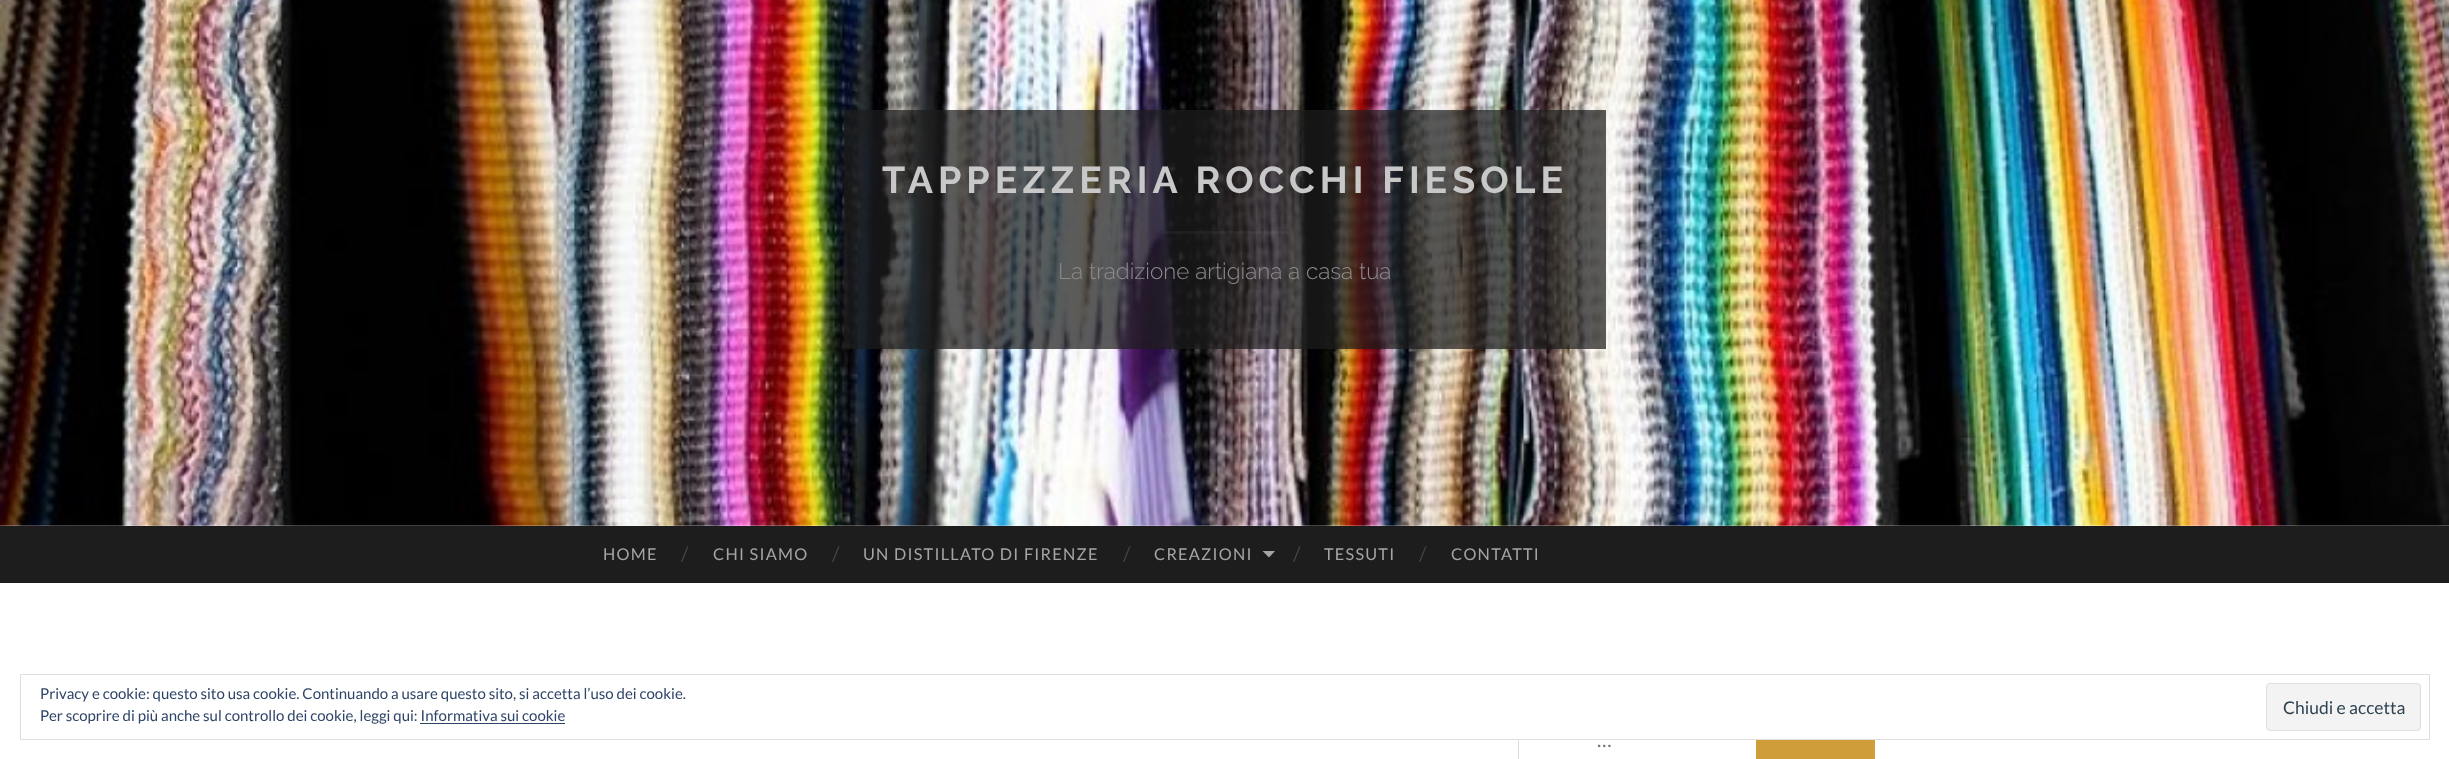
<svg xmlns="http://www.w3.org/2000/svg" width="2449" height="759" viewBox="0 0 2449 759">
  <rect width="100%" height="100%" fill="#fff"/>
  <image x="0" y="0" width="2449" height="526" href="img/1.png"/>
  <path d="M844 110h762v239H844z" fill="#1d1d1db8"/>
  <path d="M1163 231h125v3H1163z" fill="#ffffff0a"/>
  <path d="M0 526h2449v57H0z" fill="#1d1d1d"/>
  <path d="M1262.5 551H1275L1269 557.5Z" fill="#a5a5a5"/>
  <path d="M1521 708H1871V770H1521C1519 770 1518 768 1518 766V711C1518 709 1519 708 1521 708ZM1521 709H1871V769H1521C1520 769 1519 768 1519 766V711C1519 710 1520 709 1521 709Z" fill="#ddd" fill-rule="evenodd"/>
  <path d="M1757 740h117v19H1757z" fill="#cf9e38"/>
  <path d="M1756.5 708.5h118v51H1756.5z" fill="none" stroke="#cf9e38"/>
  <path d="M1518 708h357v31H1518z" fill="#fff"/>
  <path d="M20.5 674.5h2409v65H20.5z" fill="none" stroke="#dedede"/>
  <rect x="2266.5" y="683.5" width="154" height="47" rx="3.5" fill="#f3f3f3" stroke="#dedede"/>
  <path d="M420 723h145v1H420z" fill="#2e4467"/>
  <text x="882" y="193" font-family="Raleway" font-size="37.5" font-weight="bold" letter-spacing="5" fill="#c9c8c8">TAPPEZZERIA ROCCHI FIESOLE</text>
  <text x="1058" y="279" font-family="Raleway" font-size="22.5" font-weight="300" fill="#8d8a8c">La tradizione artigiana a casa tua</text>
  <text x="603" y="560" font-family="Lato" font-size="16.25" letter-spacing="1.25" fill="#a5a5a5">HOME</text>
  <text x="681" y="561" font-family="Lato" font-size="20" fill="#444">/</text>
  <text x="713" y="560" font-family="Lato" font-size="16.25" letter-spacing="1.25" fill="#a5a5a5">CHI SIAMO</text>
  <text x="832" y="561" font-family="Lato" font-size="20" fill="#444">/</text>
  <text x="863" y="560" font-family="Lato" font-size="16.25" letter-spacing="1.25" fill="#a5a5a5">UN DISTILLATO DI FIRENZE</text>
  <text x="1123" y="561" font-family="Lato" font-size="20" fill="#444">/</text>
  <text x="1154" y="560" font-family="Lato" font-size="16.25" letter-spacing="1.25" fill="#a5a5a5">CREAZIONI</text>
  <text x="1293" y="561" font-family="Lato" font-size="20" fill="#444">/</text>
  <text x="1324" y="560" font-family="Lato" font-size="16.25" letter-spacing="1.25" fill="#a5a5a5">TESSUTI</text>
  <text x="1419" y="561" font-family="Lato" font-size="20" fill="#444">/</text>
  <text x="1451" y="560" font-family="Lato" font-size="16.25" letter-spacing="1.25" fill="#a5a5a5">CONTATTI</text>
  <text x="1597" y="747" font-family="Lato" font-size="20" fill="#757575">…</text>
  <g font-family="Lato" font-size="15" fill="#2e4467">
    <text x="40" y="699">Privacy e cookie: questo sito usa cookie. Continuando a usare questo sito, si accetta l’uso dei cookie.</text>
    <text x="40" y="721">Per scoprire di più anche sul controllo dei cookie, leggi qui: Informativa sui cookie</text>
  </g>
  <text x="2283" y="714" font-family="Lato" font-size="17.5" fill="#2e4453">Chiudi e accetta</text>
</svg>
